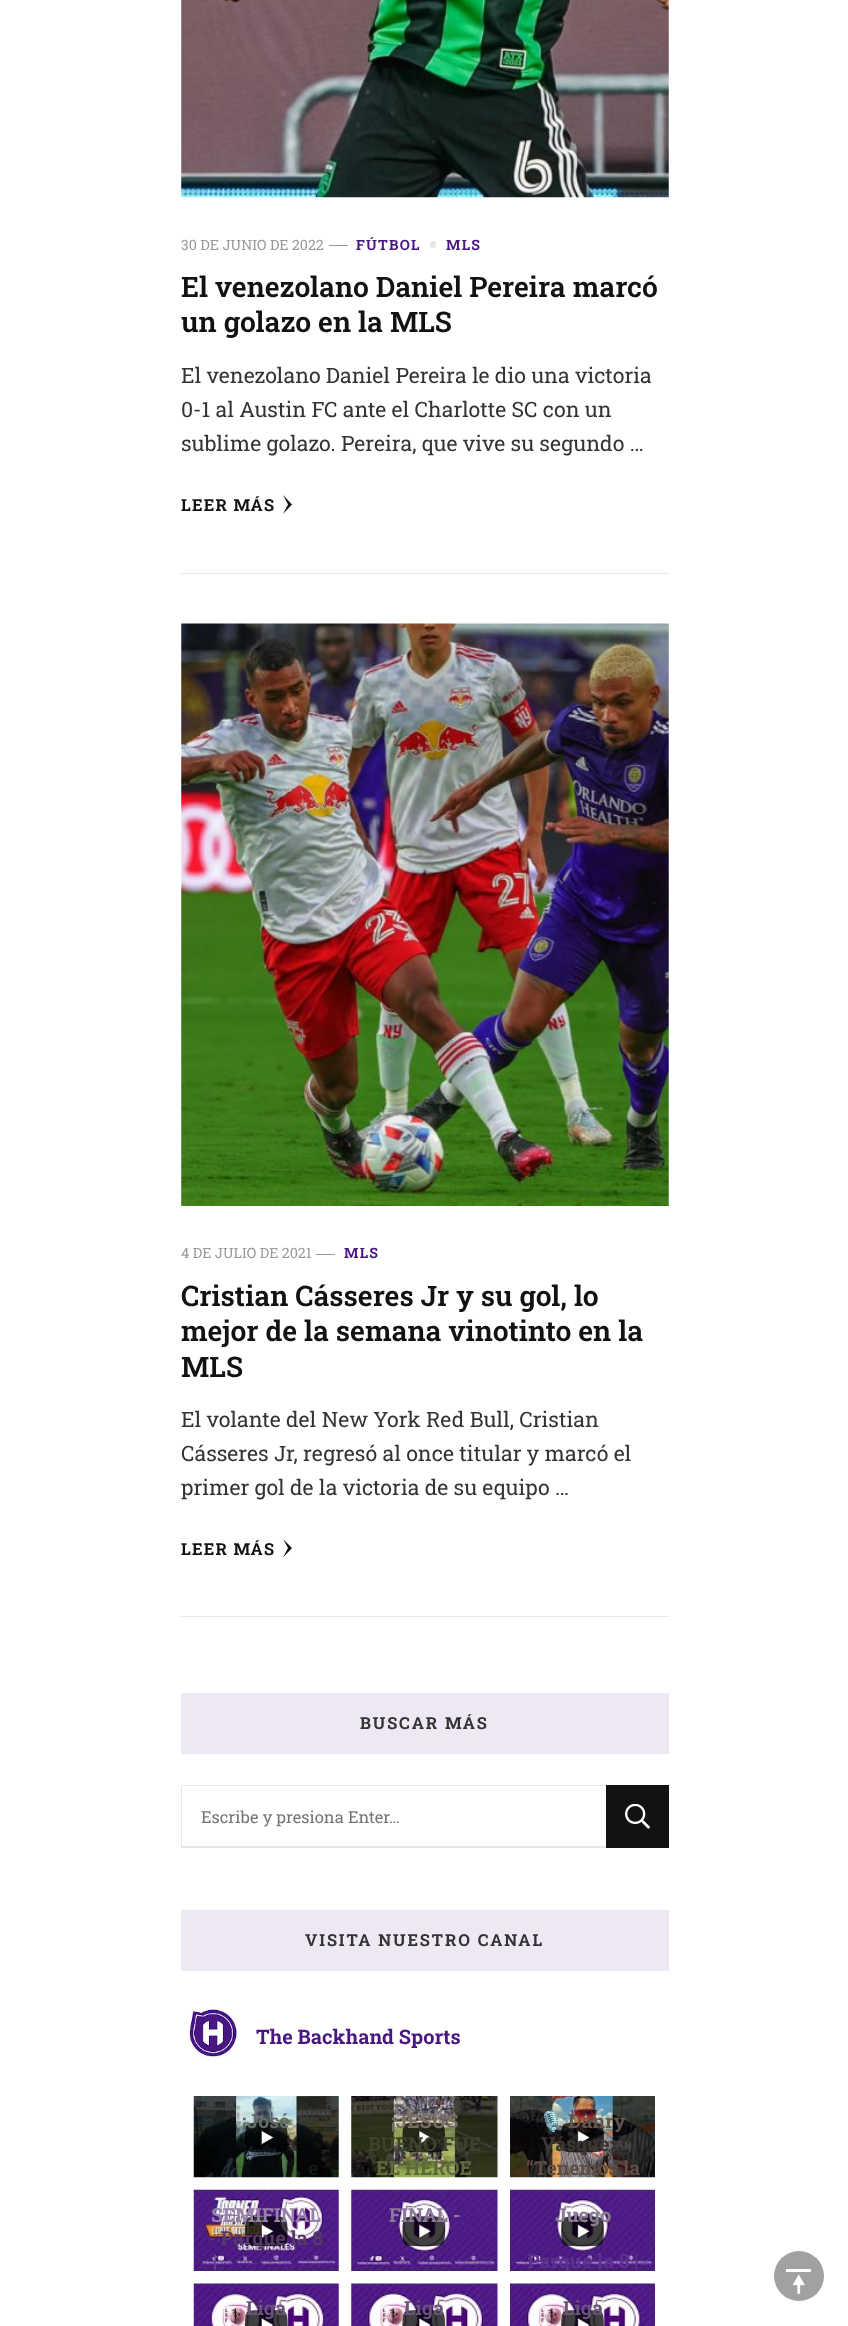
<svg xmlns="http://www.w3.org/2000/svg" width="848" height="2326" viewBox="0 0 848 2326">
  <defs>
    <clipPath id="clip1"><path d="M510 2190h145v81H510z"/></clipPath>
  </defs>
  <rect width="100%" height="100%" fill="#fff"/>
  <path d="M181 573h488v1H181z" fill="#e6e6e6"/>
  <image x="181" y="0" width="488" height="198" href="img/1.png"/>
  <path d="M329 245h19v1H329z" fill="#999"/>
  <rect x="430" y="241" width="6" height="7" rx="3" fill="#e6e6e6"/>
  <path d="M292 504.5L283 514L288 504.5L283 495Z" fill="#121212"/>
  <path d="M181 1616h488v1H181z" fill="#e6e6e6"/>
  <image x="181" y="623" width="488" height="583" href="img/2.png"/>
  <path d="M316 1254h19v1H316z" fill="#999"/>
  <path d="M292 1548L283 1557.5L288 1548L283 1539Z" fill="#121212"/>
  <path d="M181 1693h488v61H181z" fill="#ede8f3"/>
  <path d="M181 1785H606V1786H182Z" fill="#e6e6e6"/>
  <path d="M606 1848H181L182 1846H606Z" fill="#e6e6e6"/>
  <path d="M181 1848V1785L182 1786V1846Z" fill="#0000001a"/>
  <path d="M606 1785h63v63H606z" fill="#121212"/>
  <image x="625" y="1804" width="25" height="25" href="img/3.png"/>
  <path d="M181 1910h488v61H181z" fill="#ede8f3"/>
  <image x="187" y="2008" width="51" height="51" href="img/4.png"/>
  <image x="193" y="2096" width="146" height="82" href="img/5.png"/>
  <path d="M261 2145V2130L274 2137.5Z" fill="#fff"/>
  <image x="245" y="2122" width="43" height="31" href="img/6.png"/>
  <image x="351" y="2096" width="147" height="82" href="img/7.png"/>
  <path d="M419 2145V2130L431 2137.5Z" fill="#fff"/>
  <image x="402" y="2122" width="44" height="31" href="img/8.png"/>
  <image x="510" y="2096" width="145" height="82" href="img/9.png"/>
  <path d="M577.5 2145V2130L590 2137.5Z" fill="#fff"/>
  <image x="561" y="2122" width="43" height="31" href="img/10.png"/>
  <image x="193" y="2189" width="146" height="82" href="img/11.png"/>
  <path d="M261 2239V2224L274 2231Z" fill="#fff"/>
  <image x="244" y="2216" width="44" height="31" href="img/12.png"/>
  <image x="351" y="2189" width="147" height="82" href="img/13.png"/>
  <path d="M419 2239V2224L431 2231Z" fill="#fff"/>
  <image x="402" y="2216" width="44" height="31" href="img/14.png"/>
  <image x="510" y="2189" width="145" height="82" href="img/15.png"/>
  <path d="M577.5 2239V2224L590 2231Z" fill="#fff"/>
  <image x="561" y="2216" width="43" height="31" href="img/16.png"/>
  <image x="193" y="2283" width="146" height="43" href="img/17.png"/>
  <path d="M261 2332.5V2317.5L274 2325Z" fill="#fff"/>
  <image x="244" y="2310" width="44" height="16" href="img/18.png"/>
  <image x="351" y="2283" width="147" height="43" href="img/19.png"/>
  <path d="M419 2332.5V2317.5L431 2325Z" fill="#fff"/>
  <image x="402" y="2310" width="44" height="16" href="img/20.png"/>
  <image x="510" y="2283" width="145" height="43" href="img/21.png"/>
  <path d="M577.5 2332.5V2317.5L590 2325Z" fill="#fff"/>
  <image x="561" y="2310" width="43" height="16" href="img/22.png"/>
  <circle cx="799" cy="2276" r="25" fill="#a1a1a1"/>
  <image x="786" y="2269" width="25" height="25" href="img/23.png"/>
  <text x="181" y="250" font-family="Roboto Slab" font-size="14.25" fill="#999">30 DE JUNIO DE 2022</text>
  <g font-family="Roboto Slab" font-size="14.25" font-weight="bold" letter-spacing="1.25" fill="#4a1782">
    <text x="356" y="250">FÚTBOL</text>
    <text x="446" y="250">MLS</text>
  </g>
  <g font-family="Roboto Slab" font-size="28.3" font-weight="600" fill="#121212">
    <text x="181" y="297">El venezolano Daniel Pereira marcó</text>
    <text x="181" y="332">un golazo en la MLS</text>
  </g>
  <g font-family="Roboto Slab" font-size="21.25" fill="#333">
    <text x="181" y="383">El venezolano Daniel Pereira le dio una victoria</text>
    <text x="181" y="417">0-1 al Austin FC ante el Charlotte SC con un</text>
    <text x="181" y="451">sublime golazo. Pereira, que vive su segundo …</text>
  </g>
  <text x="181" y="511" font-family="Roboto Slab" font-size="16.5" font-weight="bold" letter-spacing="1.25" fill="#121212">LEER MÁS</text>
  <text x="181" y="1258" font-family="Roboto Slab" font-size="14.25" fill="#999">4 DE JULIO DE 2021</text>
  <text x="344" y="1258" font-family="Roboto Slab" font-size="14.25" font-weight="bold" letter-spacing="1.25" fill="#4a1782">MLS</text>
  <g font-family="Roboto Slab" font-size="28.3" font-weight="600" fill="#121212">
    <text x="181" y="1306">Cristian Cásseres Jr y su gol, lo</text>
    <text x="181" y="1341">mejor de la semana vinotinto en la</text>
    <text x="181" y="1377">MLS</text>
  </g>
  <g font-family="Roboto Slab" font-size="21.25" fill="#333">
    <text x="181" y="1427">El volante del New York Red Bull, Cristian</text>
    <text x="181" y="1461">Cásseres Jr, regresó al once titular y marcó el</text>
    <text x="181" y="1495">primer gol de la victoria de su equipo …</text>
  </g>
  <text x="181" y="1555" font-family="Roboto Slab" font-size="16.5" font-weight="bold" letter-spacing="1.25" fill="#121212">LEER MÁS</text>
  <text x="360" y="1729" font-family="Roboto Slab" font-size="16.5" font-weight="bold" letter-spacing="1.9" fill="#333">BUSCAR MÁS</text>
  <text x="201" y="1823" font-family="Roboto Slab" font-size="16.5" fill="#757575">Escribe y presiona Enter…</text>
  <text x="305" y="1946" font-family="Roboto Slab" font-size="16.5" font-weight="bold" letter-spacing="1.9" fill="#333">VISITA NUESTRO CANAL</text>
  <text x="256" y="2044" font-family="Roboto Slab" font-size="20" font-weight="bold" fill="#4a1782">The Backhand Sports</text>
  <text x="242" y="2128" font-family="Roboto Slab" font-size="19.5" font-weight="bold" fill="#616b67">¡José</text>
  <text x="308" y="2175" font-family="Roboto Slab" font-size="19.5" font-weight="bold" fill="#111913">e</text>
  <text x="391" y="2128" font-family="Roboto Slab" font-size="19.5" font-weight="bold" fill="#746f62">¡JESÚS</text>
  <text x="368" y="2151" font-family="Roboto Slab" font-size="19.5" font-weight="bold" fill="#3f432d">BUENO FUE</text>
  <text x="376" y="2175" font-family="Roboto Slab" font-size="19.5" font-weight="bold" fill="#5f6a3a">EL HÉROE</text>
  <text x="539" y="2128" font-family="Noto Color Emoji" font-size="19.5" font-weight="bold" fill="#4f5453">🎙️</text>
  <text x="568" y="2128" font-family="Roboto Slab" font-size="19.5" font-weight="bold" fill="#61554e">Danry</text>
  <text x="541" y="2151" font-family="Roboto Slab" font-size="19.5" font-weight="bold" fill="#3c3734">Vásquez:</text>
  <text x="526" y="2175" font-family="Roboto Slab" font-size="19.5" font-weight="bold" fill="#5e4e44">“Tenemos la</text>
  <text x="211" y="2222" font-family="Roboto Slab" font-size="19.5" font-weight="bold" fill="#9682a8">SEMIFINAL</text>
  <text x="208" y="2245" font-family="Roboto Slab" font-size="19.5" font-weight="bold" fill="#573b67">- Parque la 8</text>
  <text x="213" y="2268" font-family="Roboto Slab" font-size="19.5" font-weight="bold" fill="#663f94">|</text>
  <text x="389" y="2222" font-family="Roboto Slab" font-size="19.5" font-weight="bold" fill="#8b799a">FINAL -</text>
  <text x="555" y="2222" font-family="Roboto Slab" font-size="19.5" font-weight="bold" fill="#897d93">Juego</text>
  <g clip-path="url(#clip1)">
    <text x="527" y="2268" font-family="Roboto Slab" font-size="19.5" font-weight="bold" fill="#5c318e">Parque la 8 |</text>
  </g>
  <g font-family="Roboto Slab" font-size="19.5" font-weight="bold" fill="#675477">
    <text x="246" y="2315">Liga</text>
    <text x="404" y="2315">Liga</text>
    <text x="563" y="2315">Liga</text>
  </g>
</svg>
